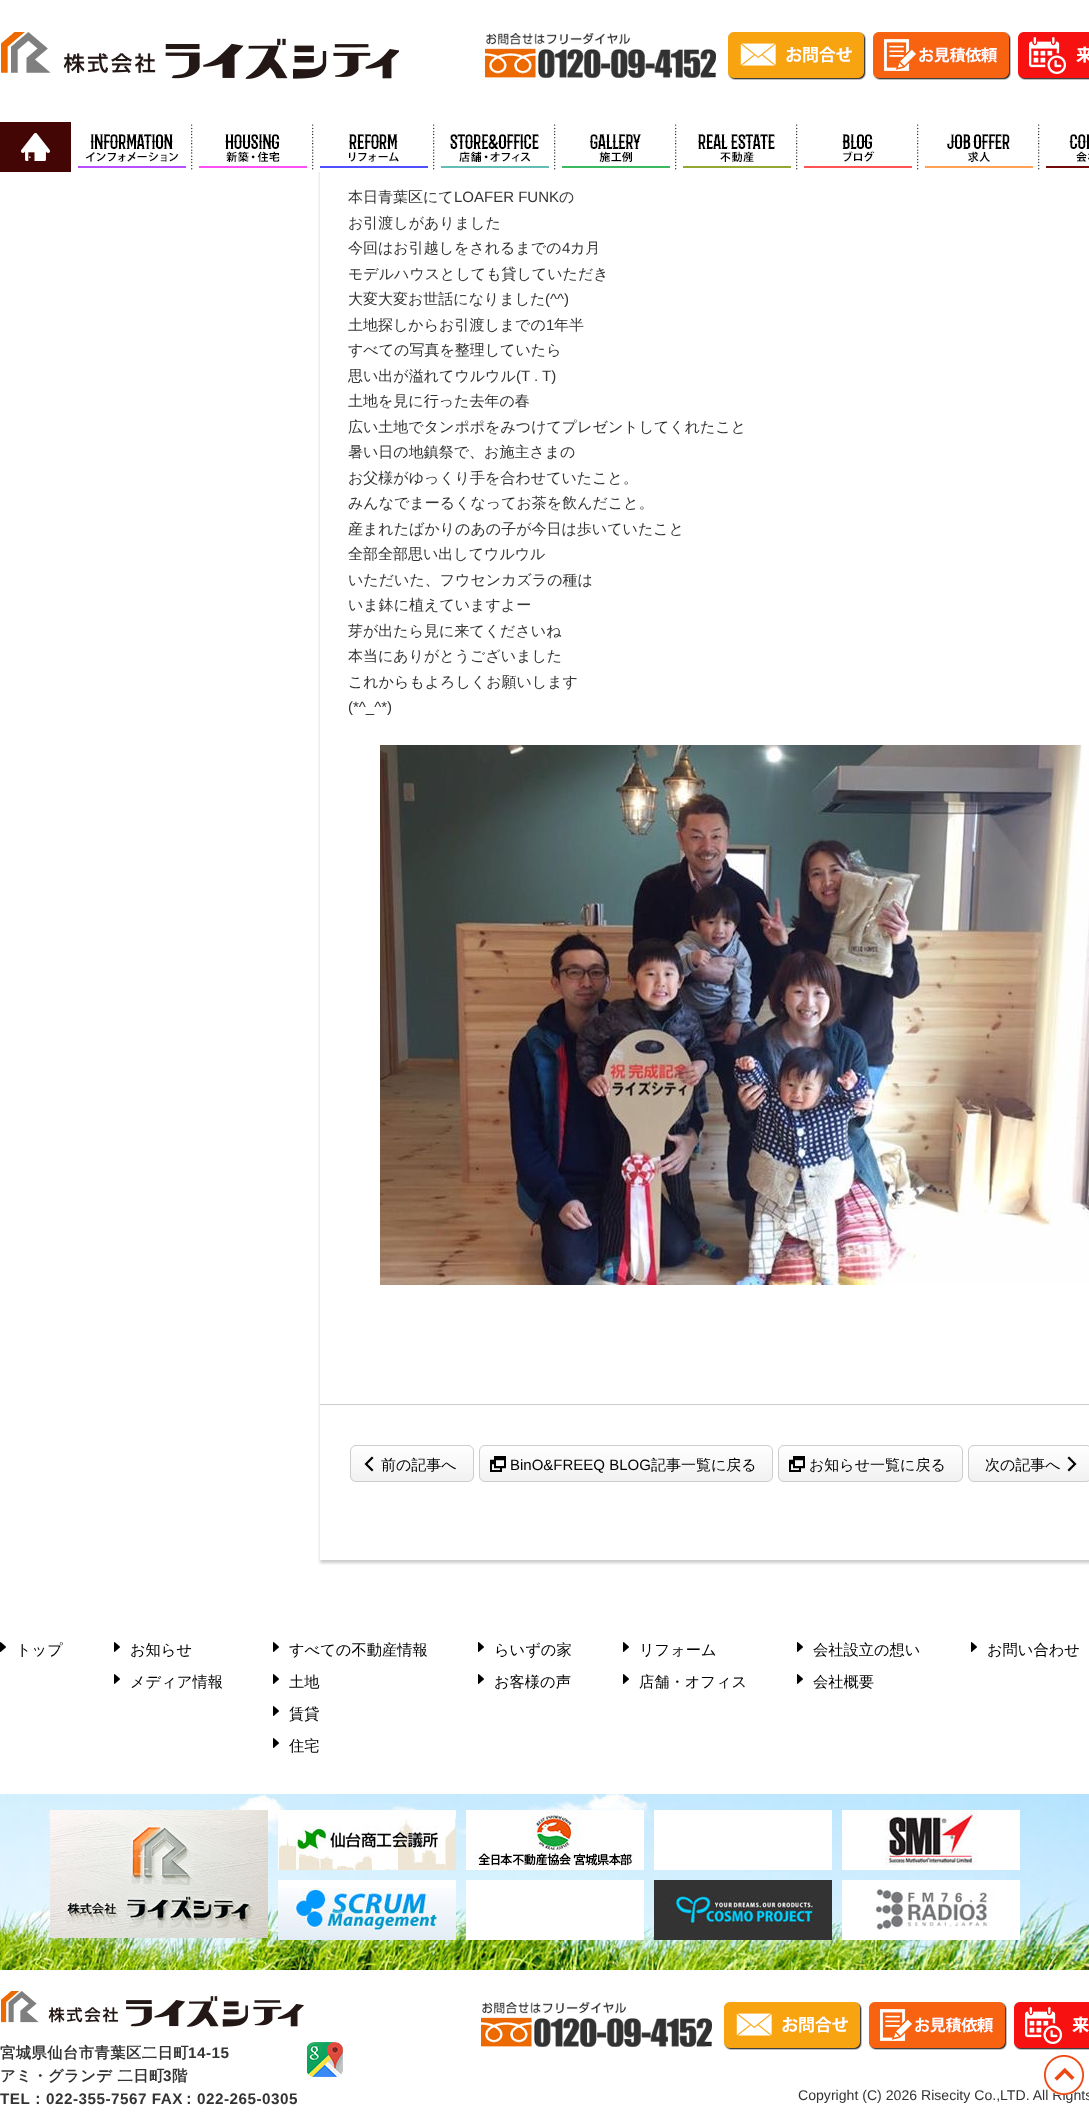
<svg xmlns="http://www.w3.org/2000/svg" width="1089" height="2115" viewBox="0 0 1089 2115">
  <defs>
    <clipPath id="clip1"><path d="M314 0H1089V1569H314ZM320-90H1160V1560H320Z" clip-rule="evenodd"/></clipPath>
  </defs>
  <rect width="100%" height="100%" fill="#fff"/>
  <g clip-path="url(#clip1)">
    <path d="M320 -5h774v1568H320z" fill="#00000033" filter="blur(1.5px)"/>
  </g>
  <path d="M318 0h2v172H318z" fill="#fff"/>
  <image x="1" y="32" width="398" height="47" href="img/1.png"/>
  <image x="485" y="33" width="231" height="45" href="img/2.png"/>
  <image x="728" y="32" width="138" height="48" href="img/3.png"/>
  <image x="873" y="32" width="138" height="48" href="img/4.png"/>
  <image x="1018" y="32" width="71" height="48" href="img/5.png"/>
  <image x="0" y="122" width="71" height="50" href="img/6.png"/>
  <image x="78" y="124" width="114" height="46" href="img/7.png"/>
  <image x="192" y="124" width="121" height="46" href="img/8.png"/>
  <image x="313" y="124" width="121" height="46" href="img/9.png"/>
  <image x="434" y="124" width="121" height="46" href="img/10.png"/>
  <image x="555" y="124" width="121" height="46" href="img/11.png"/>
  <image x="676" y="124" width="121" height="46" href="img/12.png"/>
  <image x="797" y="124" width="121" height="46" href="img/13.png"/>
  <image x="918" y="124" width="121" height="46" href="img/14.png"/>
  <image x="1039" y="124" width="50" height="46" href="img/15.png"/>
  <path d="M320 1404h769v1H320z" fill="#cdcdcd"/>
  <image x="380" y="745" width="709" height="540" href="img/16.png"/>
  <image x="350" y="1445" width="124" height="36" href="img/17.png"/>
  <rect x="350.5" y="1445.5" width="123" height="36" rx="5.5" fill="none" stroke="#cdcdcd"/>
  <image x="479" y="1445" width="294" height="36" href="img/18.png"/>
  <rect x="479.5" y="1445.5" width="293" height="36" rx="5.5" fill="none" stroke="#cdcdcd"/>
  <image x="778" y="1445" width="185" height="36" href="img/19.png"/>
  <rect x="778.5" y="1445.5" width="184" height="36" rx="5.5" fill="none" stroke="#cdcdcd"/>
  <image x="968" y="1445" width="121" height="36" href="img/20.png"/>
  <rect x="968.5" y="1445.5" width="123" height="36" rx="5.5" fill="none" stroke="#cdcdcd"/>
  <image x="0" y="1642" width="6" height="10" href="img/21.png"/>
  <image x="114" y="1642" width="6" height="10" href="img/21.png"/>
  <image x="114" y="1674" width="6" height="10" href="img/21.png"/>
  <image x="273" y="1642" width="6" height="10" href="img/21.png"/>
  <image x="273" y="1674" width="6" height="10" href="img/21.png"/>
  <image x="273" y="1706" width="6" height="10" href="img/21.png"/>
  <image x="273" y="1738" width="6" height="10" href="img/21.png"/>
  <image x="478" y="1642" width="6" height="10" href="img/21.png"/>
  <image x="478" y="1674" width="6" height="10" href="img/21.png"/>
  <image x="623" y="1642" width="6" height="10" href="img/21.png"/>
  <image x="623" y="1674" width="6" height="10" href="img/21.png"/>
  <image x="797" y="1642" width="6" height="10" href="img/21.png"/>
  <image x="797" y="1674" width="6" height="10" href="img/21.png"/>
  <image x="971" y="1642" width="6" height="10" href="img/21.png"/>
  <image x="0" y="1794" width="1089" height="176" href="img/22.png"/>
  <image x="50" y="1810" width="218" height="128" href="img/23.png"/>
  <path d="M278 1810h178v8H278z" fill="#fff"/>
  <image x="278" y="1818" width="178" height="52" href="img/24.png"/>
  <path d="M466 1810h178v60H466z" fill="#fff"/>
  <image x="474" y="1810" width="160" height="56" href="img/25.png"/>
  <path d="M654 1810h178v60H654z" fill="#fff"/>
  <path d="M842 1810h178v60H842z" fill="#fff"/>
  <image x="882" y="1810" width="96" height="56" href="img/26.png"/>
  <path d="M278 1880h178v8H278z" fill="#fff"/>
  <image x="278" y="1888" width="178" height="52" href="img/27.png"/>
  <path d="M466 1880h178v60H466z" fill="#fff"/>
  <image x="654" y="1880" width="178" height="60" href="img/28.png"/>
  <path d="M842 1880h178v60H842z" fill="#fff"/>
  <image x="874" y="1888" width="120" height="44" href="img/29.png"/>
  <image x="1" y="1991" width="303" height="36" href="img/30.png"/>
  <image x="307" y="2042" width="36" height="35" href="img/31.png"/>
  <image x="481" y="2002" width="231" height="45" href="img/2.png"/>
  <image x="724" y="2002" width="138" height="48" href="img/3.png"/>
  <image x="869" y="2002" width="138" height="48" href="img/4.png"/>
  <image x="1014" y="2002" width="75" height="48" href="img/32.png"/>
  <text x="348" y="202" font-family="WenQuanYi Zen Hei" font-size="15" font-weight="500" fill="#333">本日青葉区にて</text>
  <text x="454" y="202" font-family="Liberation Sans" font-size="15" fill="#333">LOAFER FUNK</text>
  <g font-family="WenQuanYi Zen Hei" font-size="15" font-weight="500" fill="#333">
    <text x="559" y="202">の</text>
    <text x="348" y="228">お引渡しがありました</text>
    <text x="348" y="253">今回はお引越しをされるまでの</text>
  </g>
  <text x="562" y="253" font-family="Liberation Sans" font-size="15" fill="#333">4</text>
  <g font-family="WenQuanYi Zen Hei" font-size="15" font-weight="500" fill="#333">
    <text x="570" y="253">カ月</text>
    <text x="348" y="279">モデルハウスとしても貸していただき</text>
    <text x="348" y="304">大変大変お世話になりました</text>
  </g>
  <text x="545" y="304" font-family="Liberation Sans" font-size="15" fill="#333">(^^)</text>
  <text x="348" y="330" font-family="WenQuanYi Zen Hei" font-size="15" font-weight="500" fill="#333">土地探しからお引渡しまでの</text>
  <text x="546" y="330" font-family="Liberation Sans" font-size="15" fill="#333">1</text>
  <g font-family="WenQuanYi Zen Hei" font-size="15" font-weight="500" fill="#333">
    <text x="554" y="330">年半</text>
    <text x="348" y="355">すべての写真を整理していたら</text>
    <text x="348" y="381">思い出が溢れてウルウル</text>
  </g>
  <text x="516" y="381" font-family="Liberation Sans" font-size="15" fill="#333">(T . T)</text>
  <g font-family="WenQuanYi Zen Hei" font-size="15" font-weight="500" fill="#333">
    <text x="348" y="406">土地を見に行った去年の春</text>
    <text x="348" y="432">広い土地でタンポポをみつけてプレゼントしてくれたこと</text>
    <text x="348" y="457">暑い日の地鎮祭で、お施主さまの</text>
    <text x="348" y="483">お父様がゆっくり手を合わせていたこと。</text>
    <text x="348" y="508">みんなでまーるくなってお茶を飲んだこと。</text>
    <text x="348" y="534">産まれたばかりのあの子が今日は歩いていたこと</text>
    <text x="348" y="559">全部全部思い出してウルウル</text>
    <text x="348" y="585">いただいた、フウセンカズラの種は</text>
    <text x="348" y="610">いま鉢に植えていますよー</text>
    <text x="348" y="636">芽が出たら見に来てくださいね</text>
    <text x="348" y="661">本当にありがとうございました</text>
    <text x="348" y="687">これからもよろしくお願いします</text>
  </g>
  <text x="348" y="712" font-family="Liberation Sans" font-size="15" fill="#333">(*^_^*)</text>
  <text x="381" y="1470" font-family="WenQuanYi Zen Hei" font-size="15" font-weight="500" fill="#000">前の記事へ</text>
  <text x="510" y="1470" font-family="Liberation Sans" font-size="15" fill="#000">BinO&amp;FREEQ BLOG</text>
  <g font-family="WenQuanYi Zen Hei" font-size="15" font-weight="500" fill="#000">
    <text x="651" y="1470">記事一覧に戻る</text>
    <text x="809" y="1470">お知らせ一覧に戻る</text>
    <text x="985" y="1470">次の記事へ</text>
  </g>
  <g font-family="WenQuanYi Zen Hei" font-size="15.25" font-weight="500" fill="#000">
    <text x="16" y="1655">トップ</text>
    <text x="130" y="1655">お知らせ</text>
    <text x="130" y="1687">メディア情報</text>
    <text x="289" y="1655">すべての不動産情報</text>
    <text x="289" y="1687">土地</text>
    <text x="289" y="1719">賃貸</text>
    <text x="289" y="1751">住宅</text>
    <text x="494" y="1655">らいずの家</text>
    <text x="494" y="1687">お客様の声</text>
    <text x="639" y="1655">リフォーム</text>
    <text x="639" y="1687">店舗・オフィス</text>
    <text x="813" y="1655">会社設立の想い</text>
    <text x="813" y="1687">会社概要</text>
    <text x="987" y="1655">お問い合わせ</text>
  </g>
  <text x="0" y="2058" font-family="WenQuanYi Zen Hei" font-size="15.25" font-weight="bold" letter-spacing="0.5" fill="#333">宮城県仙台市青葉区二日町</text>
  <text x="188" y="2058" font-family="Liberation Sans" font-size="15.25" font-weight="bold" letter-spacing="0.5" fill="#333">14-15</text>
  <text x="0" y="2081" font-family="WenQuanYi Zen Hei" font-size="15.25" font-weight="bold" letter-spacing="0.5" fill="#333">アミ・グランデ 二日町</text>
  <text x="163" y="2081" font-family="Liberation Sans" font-size="15.25" font-weight="bold" letter-spacing="0.5" fill="#333">3</text>
  <text x="172" y="2081" font-family="WenQuanYi Zen Hei" font-size="15.25" font-weight="bold" letter-spacing="0.5" fill="#333">階</text>
  <text x="0" y="2104" font-family="Liberation Sans" font-size="15.25" font-weight="bold" letter-spacing="0.5" fill="#333">TEL</text>
  <text x="30" y="2104" font-family="WenQuanYi Zen Hei" font-size="15.25" font-weight="bold" letter-spacing="0.5" fill="#333">：</text>
  <text x="46" y="2104" font-family="Liberation Sans" font-size="15.25" font-weight="bold" letter-spacing="0.5" fill="#333">022-355-7567 FAX</text>
  <text x="181" y="2104" font-family="WenQuanYi Zen Hei" font-size="15.25" font-weight="bold" letter-spacing="0.5" fill="#333">：</text>
  <text x="197" y="2104" font-family="Liberation Sans" font-size="15.25" font-weight="bold" letter-spacing="0.5" fill="#333">022-265-0305</text>
  <text x="798" y="2100" font-family="Liberation Sans" font-size="14.1" fill="#333">Copyright (C) 2026 Risecity Co.,LTD. All Rights</text>
  <image x="1044" y="2055" width="40" height="40" href="img/33.png"/>
</svg>
